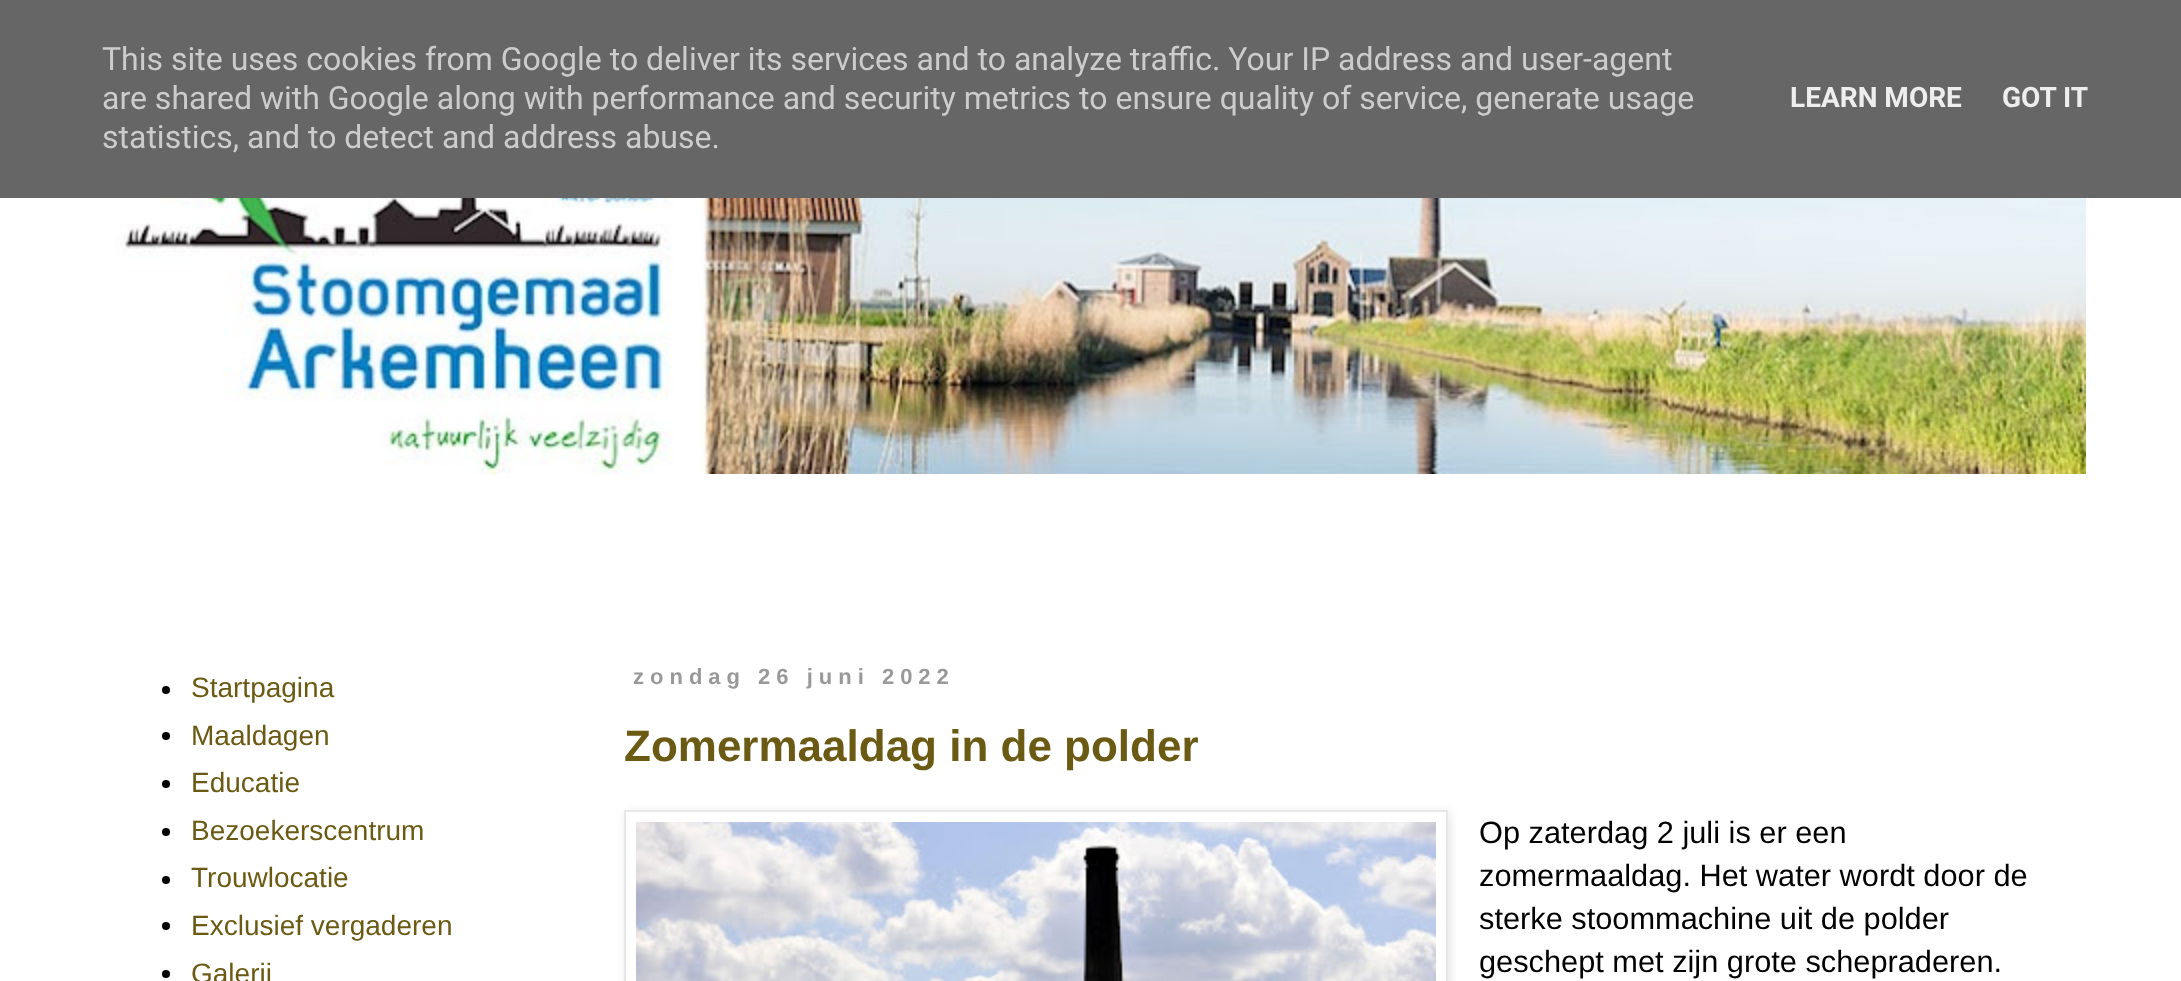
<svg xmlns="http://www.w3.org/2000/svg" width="2181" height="981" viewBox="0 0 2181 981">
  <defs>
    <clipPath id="clip1"><path d="M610 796H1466V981H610ZM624 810H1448V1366H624Z" clip-rule="evenodd"/></clipPath>
  </defs>
  <rect width="100%" height="100%" fill="#fff"/>
  <path d="M0 0h2181v198H0z" fill="#666"/>
  <image x="116" y="198" width="1970" height="276" href="img/1.png"/>
  <circle cx="166" cy="690" r="4" fill="#000"/>
  <circle cx="166" cy="736" r="4" fill="#000"/>
  <circle cx="166" cy="784" r="4" fill="#000"/>
  <circle cx="166" cy="832" r="4" fill="#000"/>
  <circle cx="166" cy="880" r="4" fill="#000"/>
  <circle cx="166" cy="926" r="4" fill="#000"/>
  <circle cx="166" cy="974" r="4" fill="#000"/>
  <g clip-path="url(#clip1)">
    <path d="M626 812h824v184H626z" fill="#0000001a" filter="blur(5px)"/>
  </g>
  <path d="M625 811h822v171H625z" fill="none" stroke="#e7e7e7" stroke-width="2"/>
  <image x="636" y="822" width="800" height="159" href="img/2.png"/>
  <g font-family="Roboto" font-size="32" fill="#ccc">
    <text x="102" y="70">This site uses cookies from Google to deliver its services and to analyze traffic. Your IP address and user-agent</text>
    <text x="102" y="109">are shared with Google along with performance and security metrics to ensure quality of service, generate usage</text>
    <text x="102" y="148">statistics, and to detect and address abuse.</text>
  </g>
  <g font-family="Roboto" font-size="28" font-weight="bold" fill="#eee">
    <text x="1790" y="107">LEARN MORE</text>
    <text x="2002" y="107">GOT IT</text>
  </g>
  <g font-family="Liberation Sans" font-size="28" fill="#6a5a13">
    <text x="191" y="697">Startpagina</text>
    <text x="191" y="745">Maaldagen</text>
    <text x="191" y="792">Educatie</text>
    <text x="191" y="840">Bezoekerscentrum</text>
    <text x="191" y="887">Trouwlocatie</text>
    <text x="191" y="935">Exclusief vergaderen</text>
    <text x="191" y="983">Galerij</text>
  </g>
  <text x="633" y="684" font-family="Liberation Sans" font-size="22" font-weight="bold" letter-spacing="6" fill="#999">zondag 26 juni 2022</text>
  <text x="624" y="761" font-family="Liberation Sans" font-size="44" font-weight="bold" fill="#6a5a13">Zomermaaldag in de polder</text>
  <g font-family="Liberation Sans" font-size="30.75" fill="#000">
    <text x="1479" y="843">Op zaterdag 2 juli is er een</text>
    <text x="1479" y="886">zomermaaldag. Het water wordt door de</text>
    <text x="1479" y="929">sterke stoommachine uit de polder</text>
    <text x="1479" y="972">geschept met zijn grote schepraderen.</text>
  </g>
</svg>
